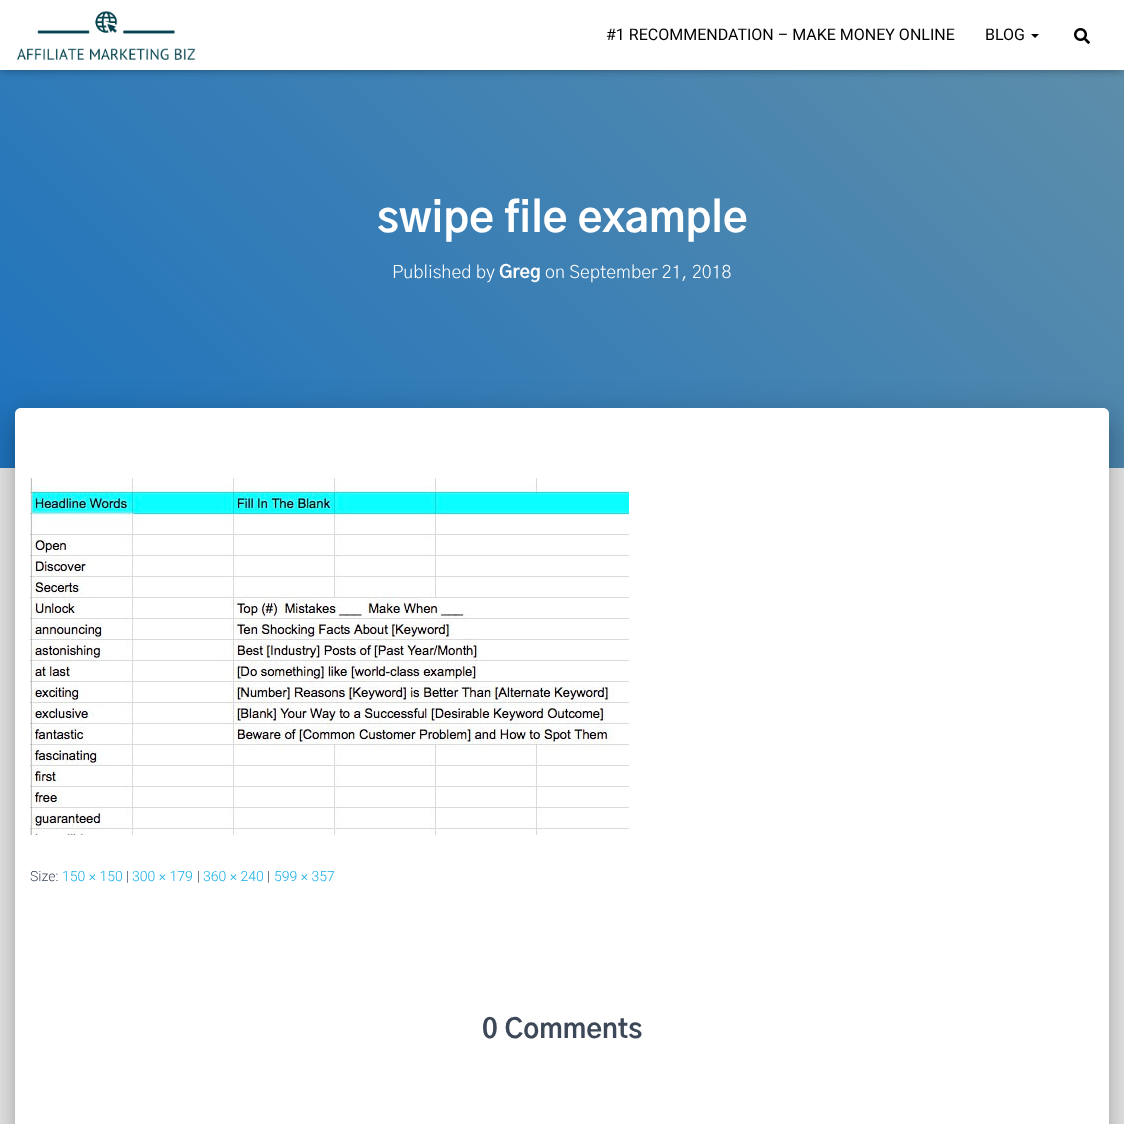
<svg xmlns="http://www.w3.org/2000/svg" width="1124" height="1124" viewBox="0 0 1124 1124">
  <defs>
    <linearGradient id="g1" gradientUnits="userSpaceOnUse" x1="164" y1="632" x2="960" y2="-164"><stop offset="0" stop-color="#1e73be"/><stop offset="1" stop-color="#608fa9"/></linearGradient>
  </defs>
  <rect width="100%" height="100%" fill="#e8e8e8"/>
  <path d="M0 70h1124v398H0z" fill="url(#g1)"/>
  <path d="M2 6h1120v66H2z" fill="#0000001a" filter="blur(2.5px)"/>
  <path d="M0 1h1124v70H0z" fill="#0000001f" filter="blur(5px)"/>
  <path d="M6 7h1112v58H6z" fill="#0000006b" filter="blur(5px)"/>
  <path d="M0 0h1124v70H0z" fill="#fff"/>
  <image x="16" y="11" width="180" height="49" href="img/1.png"/>
  <path d="M1031 34H1039L1035 38Z" fill="#000"/>
  <image x="1074" y="28" width="16" height="16" href="img/2.png"/>
  <rect x="20" y="421" width="1084" height="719" rx="1" fill="#00000033" filter="blur(5px)"/>
  <rect x="10" y="409" width="1104" height="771" rx="11" fill="#0000001f" filter="blur(15px)"/>
  <rect x="13" y="422" width="1098" height="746" rx="8" fill="#00000024" filter="blur(12px)"/>
  <path d="M21 408H1103C1106.5 408 1109 410.5 1109 414V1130H15V414C15 410.5 17.5 408 21 408Z" fill="#fff"/>
  <image x="30" y="478" width="599" height="357" href="img/3.png"/>
  <g font-family="Roboto" font-size="16" fill="#000">
    <text x="606" y="40">#1 RECOMMENDATION – MAKE MONEY ONLINE</text>
    <text x="985" y="40">BLOG</text>
  </g>
  <text x="377" y="232" font-family="'Gothic A1'" font-size="42" font-weight="bold" fill="#fff">swipe file example</text>
  <text x="392" y="278" font-family="'Gothic A1'" font-size="18" font-weight="300" fill="#fff">Published by</text>
  <text x="499" y="278" font-family="'Gothic A1'" font-size="18" font-weight="bold" fill="#fff">Greg</text>
  <text x="545" y="278" font-family="'Gothic A1'" font-size="18" font-weight="300" fill="#fff">on September 21, 2018</text>
  <text x="30" y="881" font-family="Roboto" font-size="14" font-weight="300" fill="#3c4858">Size:</text>
  <text x="62" y="881" font-family="Roboto" font-size="14" font-weight="300" fill="#16aee5">150 × 150</text>
  <text x="126" y="881" font-family="Roboto" font-size="14" font-weight="300" fill="#3c4858">|</text>
  <text x="132" y="881" font-family="Roboto" font-size="14" font-weight="300" fill="#16aee5">300 × 179</text>
  <text x="197" y="881" font-family="Roboto" font-size="14" font-weight="300" fill="#3c4858">|</text>
  <text x="203" y="881" font-family="Roboto" font-size="14" font-weight="300" fill="#16aee5">360 × 240</text>
  <text x="267" y="881" font-family="Roboto" font-size="14" font-weight="300" fill="#3c4858">|</text>
  <text x="274" y="881" font-family="Roboto" font-size="14" font-weight="300" fill="#16aee5">599 × 357</text>
  <text x="482" y="1038" font-family="'Gothic A1'" font-size="27" font-weight="bold" fill="#3c4858">0 Comments</text>
</svg>
